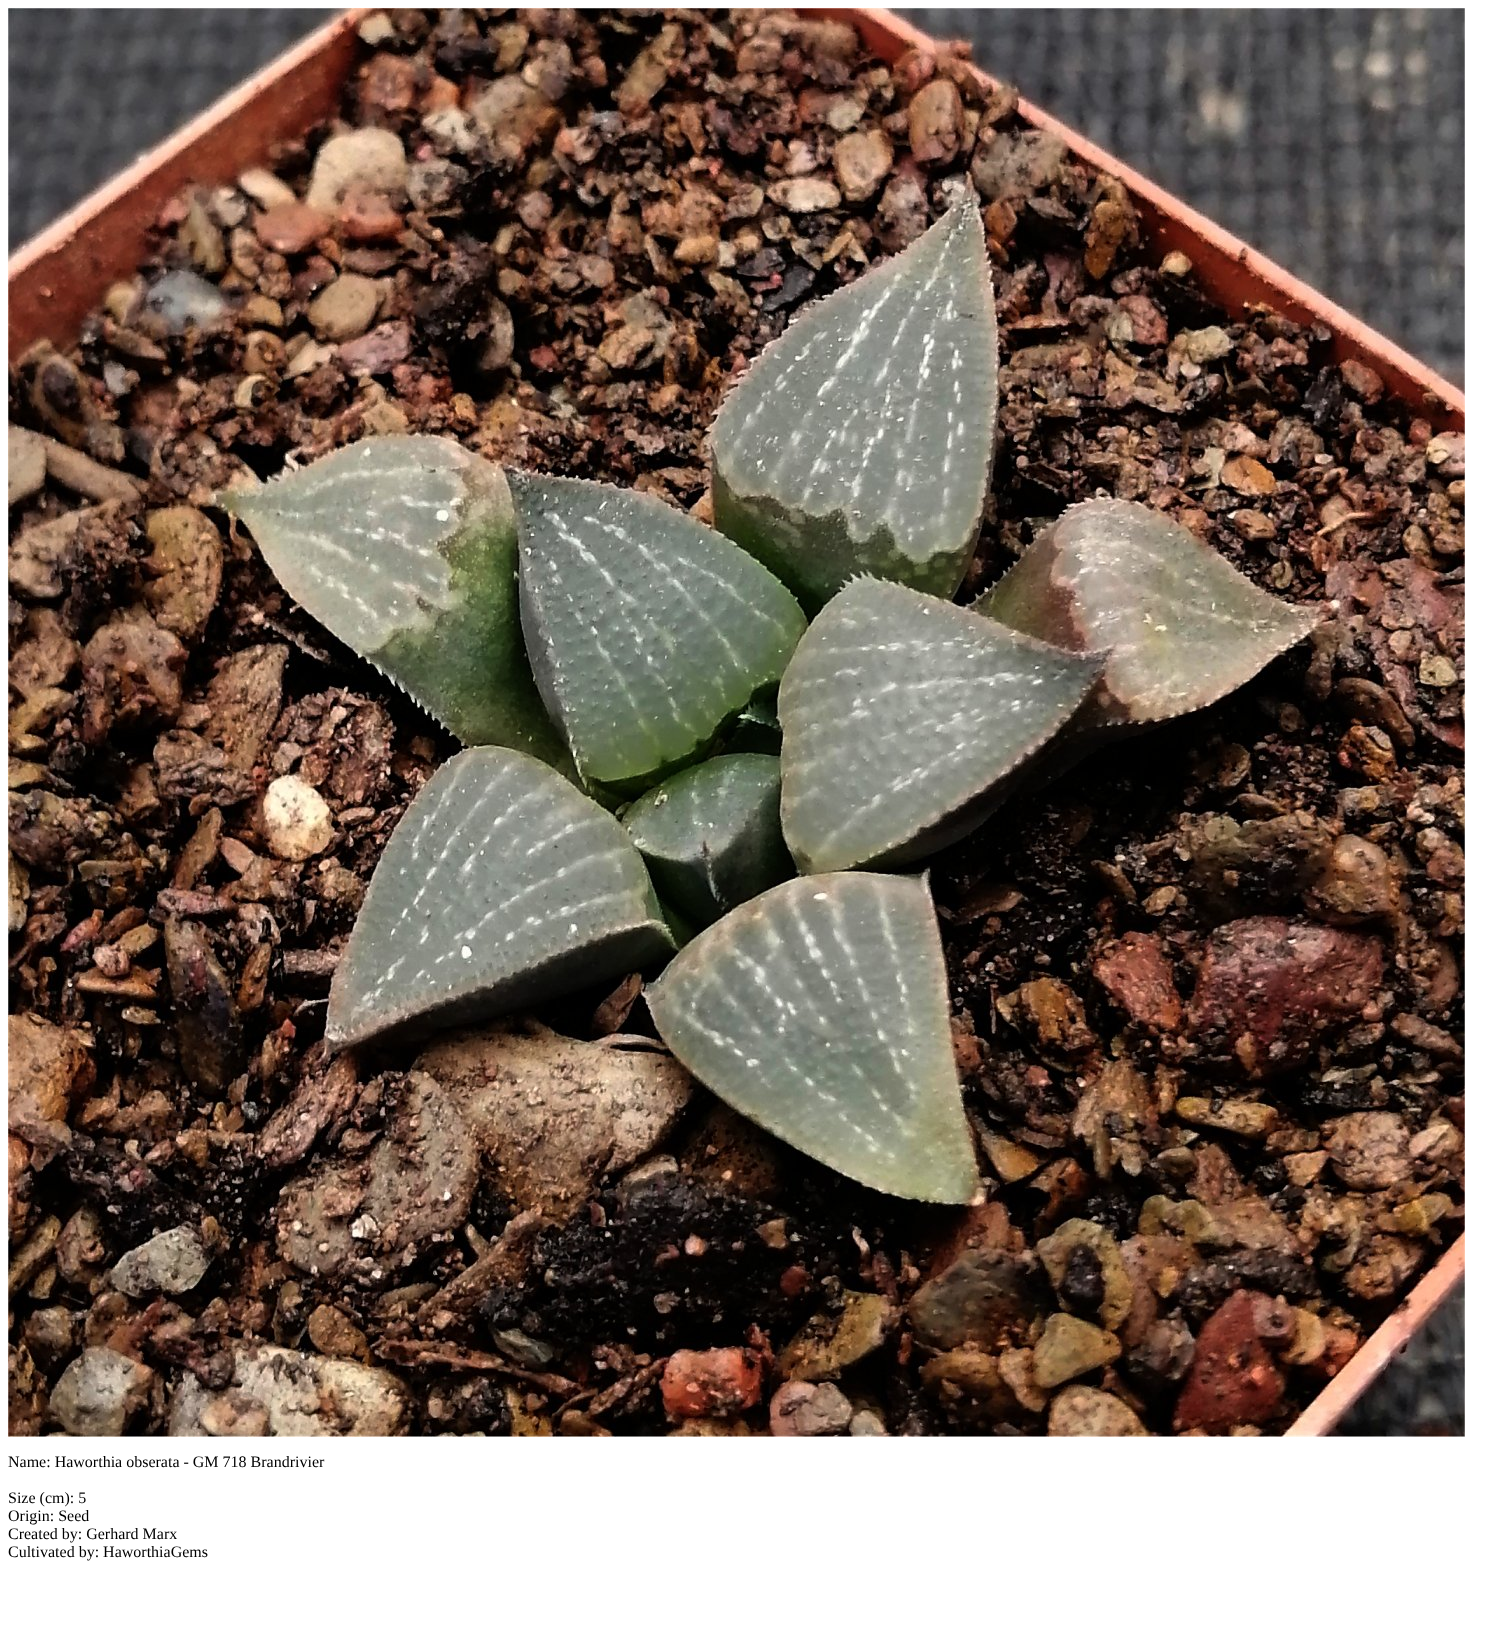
<svg xmlns="http://www.w3.org/2000/svg" width="1489" height="1644" viewBox="0 0 1489 1644">
  <rect width="100%" height="100%" fill="#fff"/>
  <image x="8" y="8" width="1457" height="1429" href="img/1.png"/>
  <g font-family="Liberation Serif" font-size="16" fill="#000">
    <text x="8" y="1467">Name: Haworthia obserata - GM 718 Brandrivier</text>
    <text x="8" y="1503">Size (cm): 5</text>
    <text x="8" y="1521">Origin: Seed</text>
    <text x="8" y="1539">Created by: Gerhard Marx</text>
    <text x="8" y="1557">Cultivated by: HaworthiaGems</text>
  </g>
</svg>
